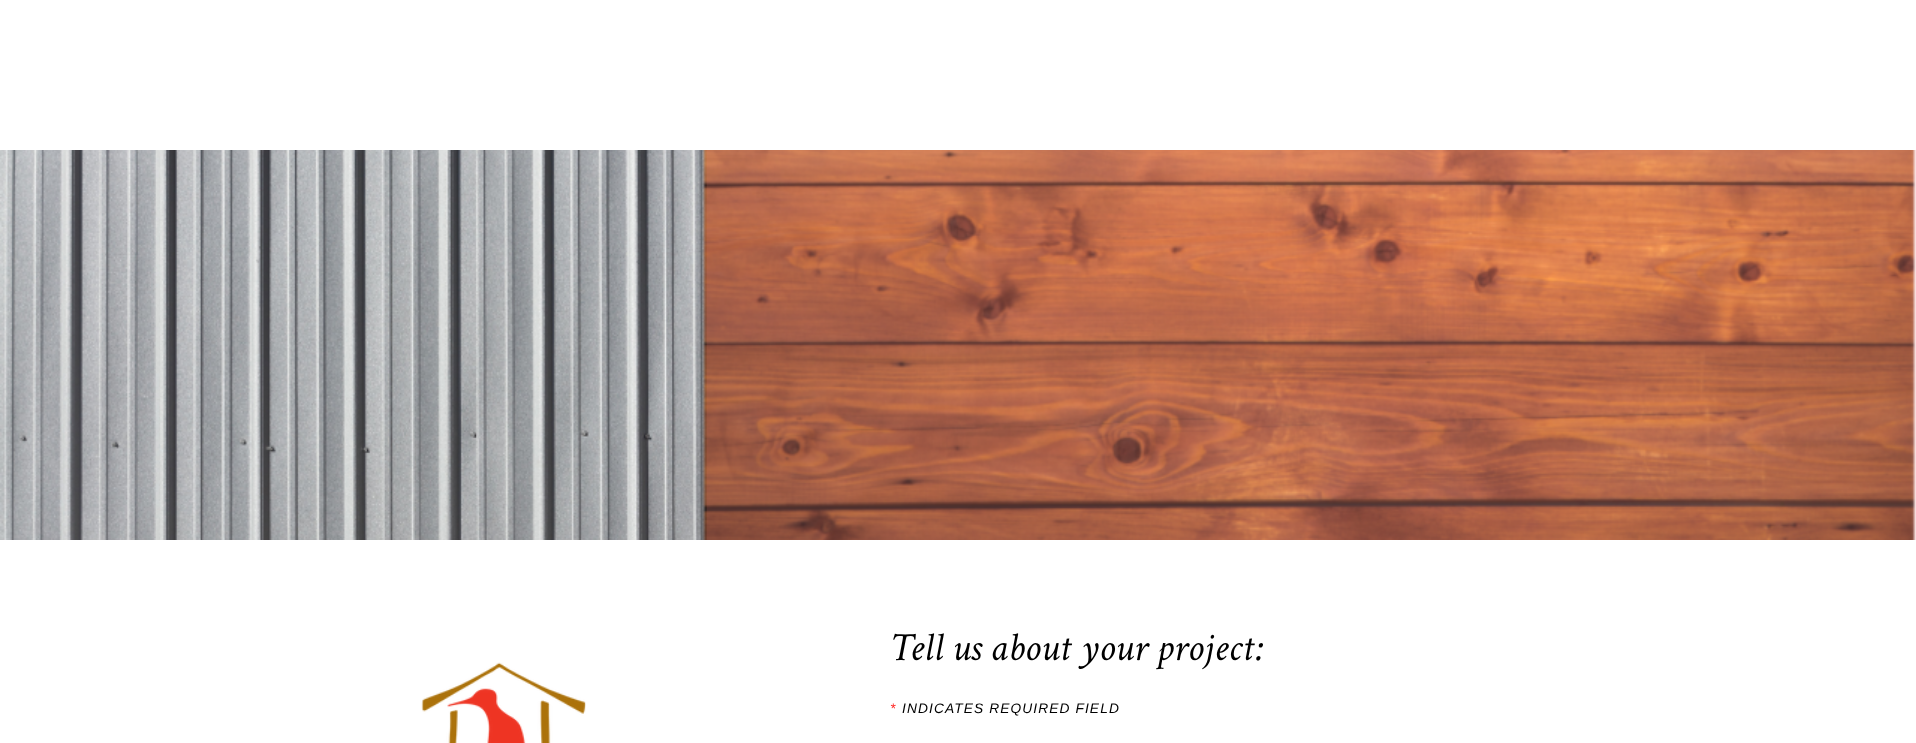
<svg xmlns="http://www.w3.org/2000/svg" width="1916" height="743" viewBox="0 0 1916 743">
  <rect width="100%" height="100%" fill="#fff"/>
  <image x="0" y="150" width="1916" height="390" href="img/1.png"/>
  <image x="421" y="662" width="165" height="81" href="img/2.png"/>
  <text x="890" y="660" font-family="Crimson Text" font-size="40" font-style="italic" fill="#000">Tell us about your project:</text>
  <text x="890" y="713" font-family="Liberation Sans" font-size="13.75" font-style="italic" letter-spacing="1.1" fill="#ff2825">*</text>
  <text x="902" y="713" font-family="Liberation Sans" font-size="13.75" font-style="italic" letter-spacing="1.1" fill="#000">INDICATES REQUIRED FIELD</text>
</svg>
